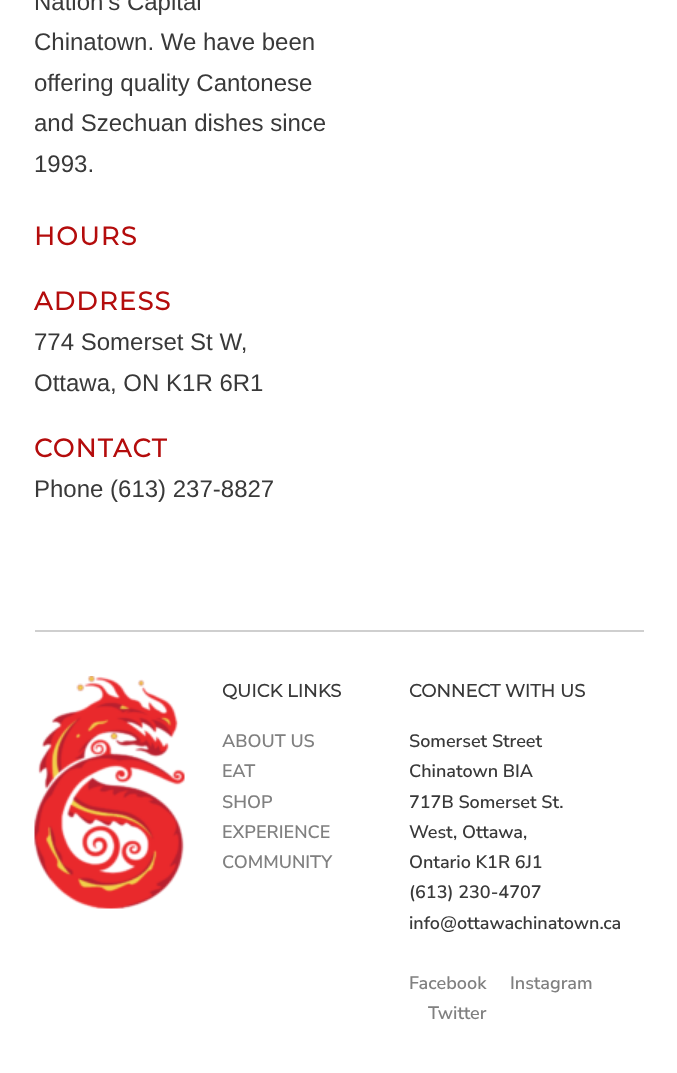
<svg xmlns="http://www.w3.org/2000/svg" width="677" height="1073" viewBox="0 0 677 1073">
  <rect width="100%" height="100%" fill="#fff"/>
  <path d="M35 630h609v2H35z" fill="#cfcfcf"/>
  <image x="34" y="676" width="151" height="233" href="img/1.png"/>
  <g font-family="Liberation Sans" font-size="24" fill="#393939">
    <text x="34" y="10">Nation’s Capital</text>
    <text x="34" y="50">Chinatown. We have been</text>
    <text x="34" y="91">offering quality Cantonese</text>
    <text x="34" y="131">and Szechuan dishes since</text>
    <text x="34" y="172">1993.</text>
  </g>
  <g font-family="Montserrat" font-size="25.5" font-weight="bold" letter-spacing="1.5" fill="#b40c0c">
    <text x="34" y="245">HOURS</text>
    <text x="34" y="310">ADDRESS</text>
  </g>
  <g font-family="Liberation Sans" font-size="24" fill="#393939">
    <text x="34" y="350">774 Somerset St W,</text>
    <text x="34" y="391">Ottawa, ON K1R 6R1</text>
  </g>
  <text x="34" y="457" font-family="Montserrat" font-size="25.5" font-weight="bold" letter-spacing="1.5" fill="#b40c0c">CONTACT</text>
  <text x="34" y="497" font-family="Liberation Sans" font-size="24" fill="#393939">Phone (613) 237-8827</text>
  <text x="222" y="697" font-family="Montserrat" font-size="18" font-weight="bold" fill="#393939">QUICK LINKS</text>
  <g font-family="Nunito Sans" font-size="18" font-weight="600" fill="#808080">
    <text x="222" y="747">ABOUT US</text>
    <text x="222" y="777">EAT</text>
    <text x="222" y="808">SHOP</text>
    <text x="222" y="838">EXPERIENCE</text>
    <text x="222" y="868">COMMUNITY</text>
  </g>
  <text x="409" y="697" font-family="Montserrat" font-size="18" font-weight="bold" fill="#393939">CONNECT WITH US</text>
  <g font-family="Nunito Sans" font-size="18" font-weight="600" fill="#393939">
    <text x="409" y="747">Somerset Street</text>
    <text x="409" y="777">Chinatown BIA</text>
    <text x="409" y="808">717B Somerset St.</text>
    <text x="409" y="838">West, Ottawa,</text>
    <text x="409" y="868">Ontario K1R 6J1</text>
    <text x="409" y="898">(613) 230-4707</text>
    <text x="409" y="929">info@ottawachinatown.ca</text>
  </g>
  <g font-family="Nunito Sans" font-size="18" font-weight="600" fill="#808080">
    <text x="409" y="989">Facebook</text>
    <text x="510" y="989">Instagram</text>
    <text x="428" y="1019">Twitter</text>
  </g>
</svg>
